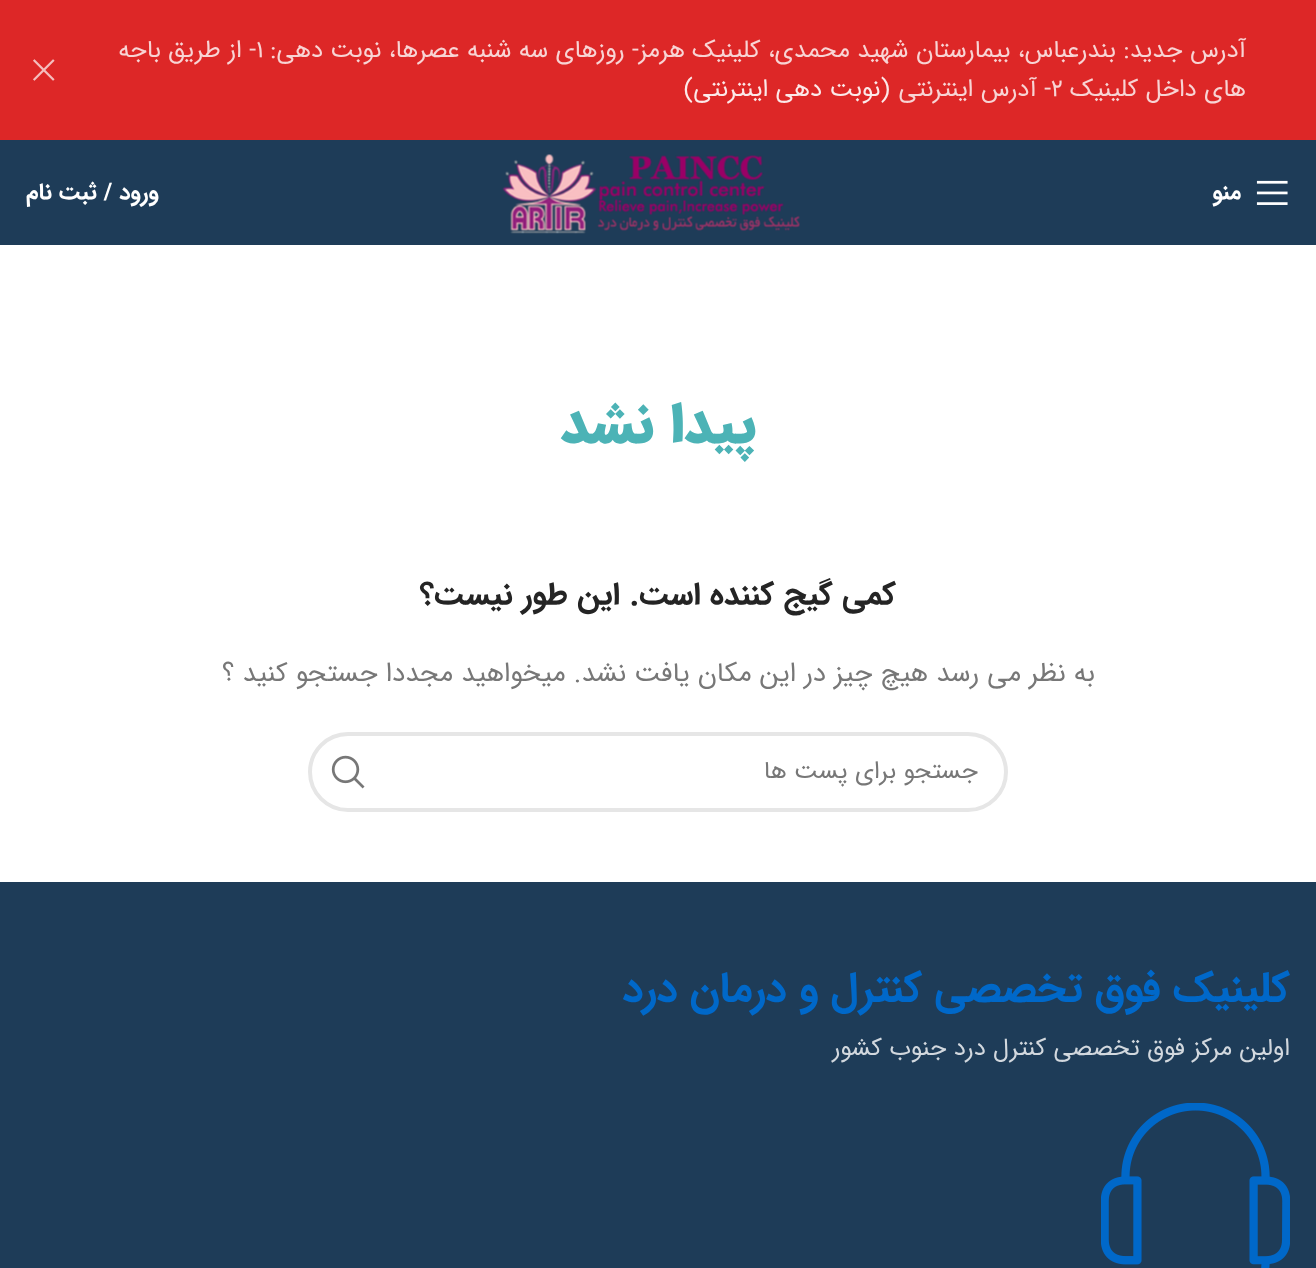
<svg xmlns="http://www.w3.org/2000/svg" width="1316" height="1268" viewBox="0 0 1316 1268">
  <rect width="100%" height="100%" fill="#fff"/>
  <path d="M0 0h1316v140H0z" fill="#dd2727"/>
  <image x="33" y="59" width="22" height="22" href="img/1.png"/>
  <path d="M0 140h1316v105H0z" fill="#1e3c58"/>
  <image x="1256" y="180" width="32" height="25" href="img/2.png"/>
  <image x="502" y="154" width="298" height="80" href="img/3.png"/>
  <rect x="310" y="734" width="696" height="76" rx="38" fill="none" stroke="#e6e6e6" stroke-width="4"/>
  <image x="331" y="755" width="34" height="34" href="img/4.png"/>
  <path d="M0 882h1316v386H0z" fill="#1e3c58"/>
  <image x="1101" y="1103" width="189" height="165" href="img/5.png"/>
  <text x="1246" y="57" font-family="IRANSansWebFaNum" font-size="24.5" direction="rtl" fill="#f8d4d4">آدرس جدید: بندرعباس، بیمارستان شهید محمدی، کلینیک هرمز- روزهای سه شنبه عصرها، نوبت دهی:</text>
  <text x="256" y="57" font-family="IRANSansWebFaNum" font-size="24.5" fill="#f8d4d4">۱</text>
  <g font-family="IRANSansWebFaNum" font-size="24.5" direction="rtl" fill="#f8d4d4">
    <text x="256" y="57">- از طریق باجه</text>
    <text x="1246" y="96">های داخل کلینیک</text>
  </g>
  <text x="1051" y="96" font-family="IRANSansWebFaNum" font-size="24.5" fill="#f8d4d4">۲</text>
  <text x="1051" y="96" font-family="IRANSansWebFaNum" font-size="24.5" direction="rtl" fill="#f8d4d4">- آدرس اینترنتی</text>
  <text x="890" y="96" font-family="IRANSansWebFaNum" font-size="24.5" direction="rtl" fill="#fce9e9">(نوبت دهی اینترنتی)</text>
  <g font-family="IRANSansWebFaNum" font-size="22.75" font-weight="bold" direction="rtl" fill="#fff">
    <text x="1241" y="199">منو</text>
    <text x="159" y="199">ورود / ثبت نام</text>
  </g>
  <text x="756" y="441" font-family="IRANSansWebFaNum" font-size="56" font-weight="900" direction="rtl" fill="#4cb3b6">پیدا نشد</text>
  <text x="896" y="604" font-family="IRANSansWebFaNum" font-size="31.5" font-weight="bold" direction="rtl" fill="#242424">کمی گیج کننده است. این طور نیست؟</text>
  <text x="1095" y="681" font-family="IRANSansWebFaNum" font-size="26.95" direction="rtl" fill="#777">به نظر می رسد هیچ چیز در این مکان یافت نشد. میخواهید مجددا جستجو کنید ؟</text>
  <text x="978" y="778" font-family="IRANSansWebFaNum" font-size="24.5" direction="rtl" fill="#777">جستجو برای پست ها</text>
  <text x="1290" y="1001" font-family="IRANSansWebFaNum" font-size="42" font-weight="bold" direction="rtl" fill="#0068c9">کلینیک فوق تخصصی کنترل و درمان درد</text>
  <text x="1290" y="1055" font-family="IRANSansWebFaNum" font-size="24.5" direction="rtl" fill="#d2d8de">اولین مرکز فوق تخصصی کنترل درد جنوب کشور</text>
</svg>
